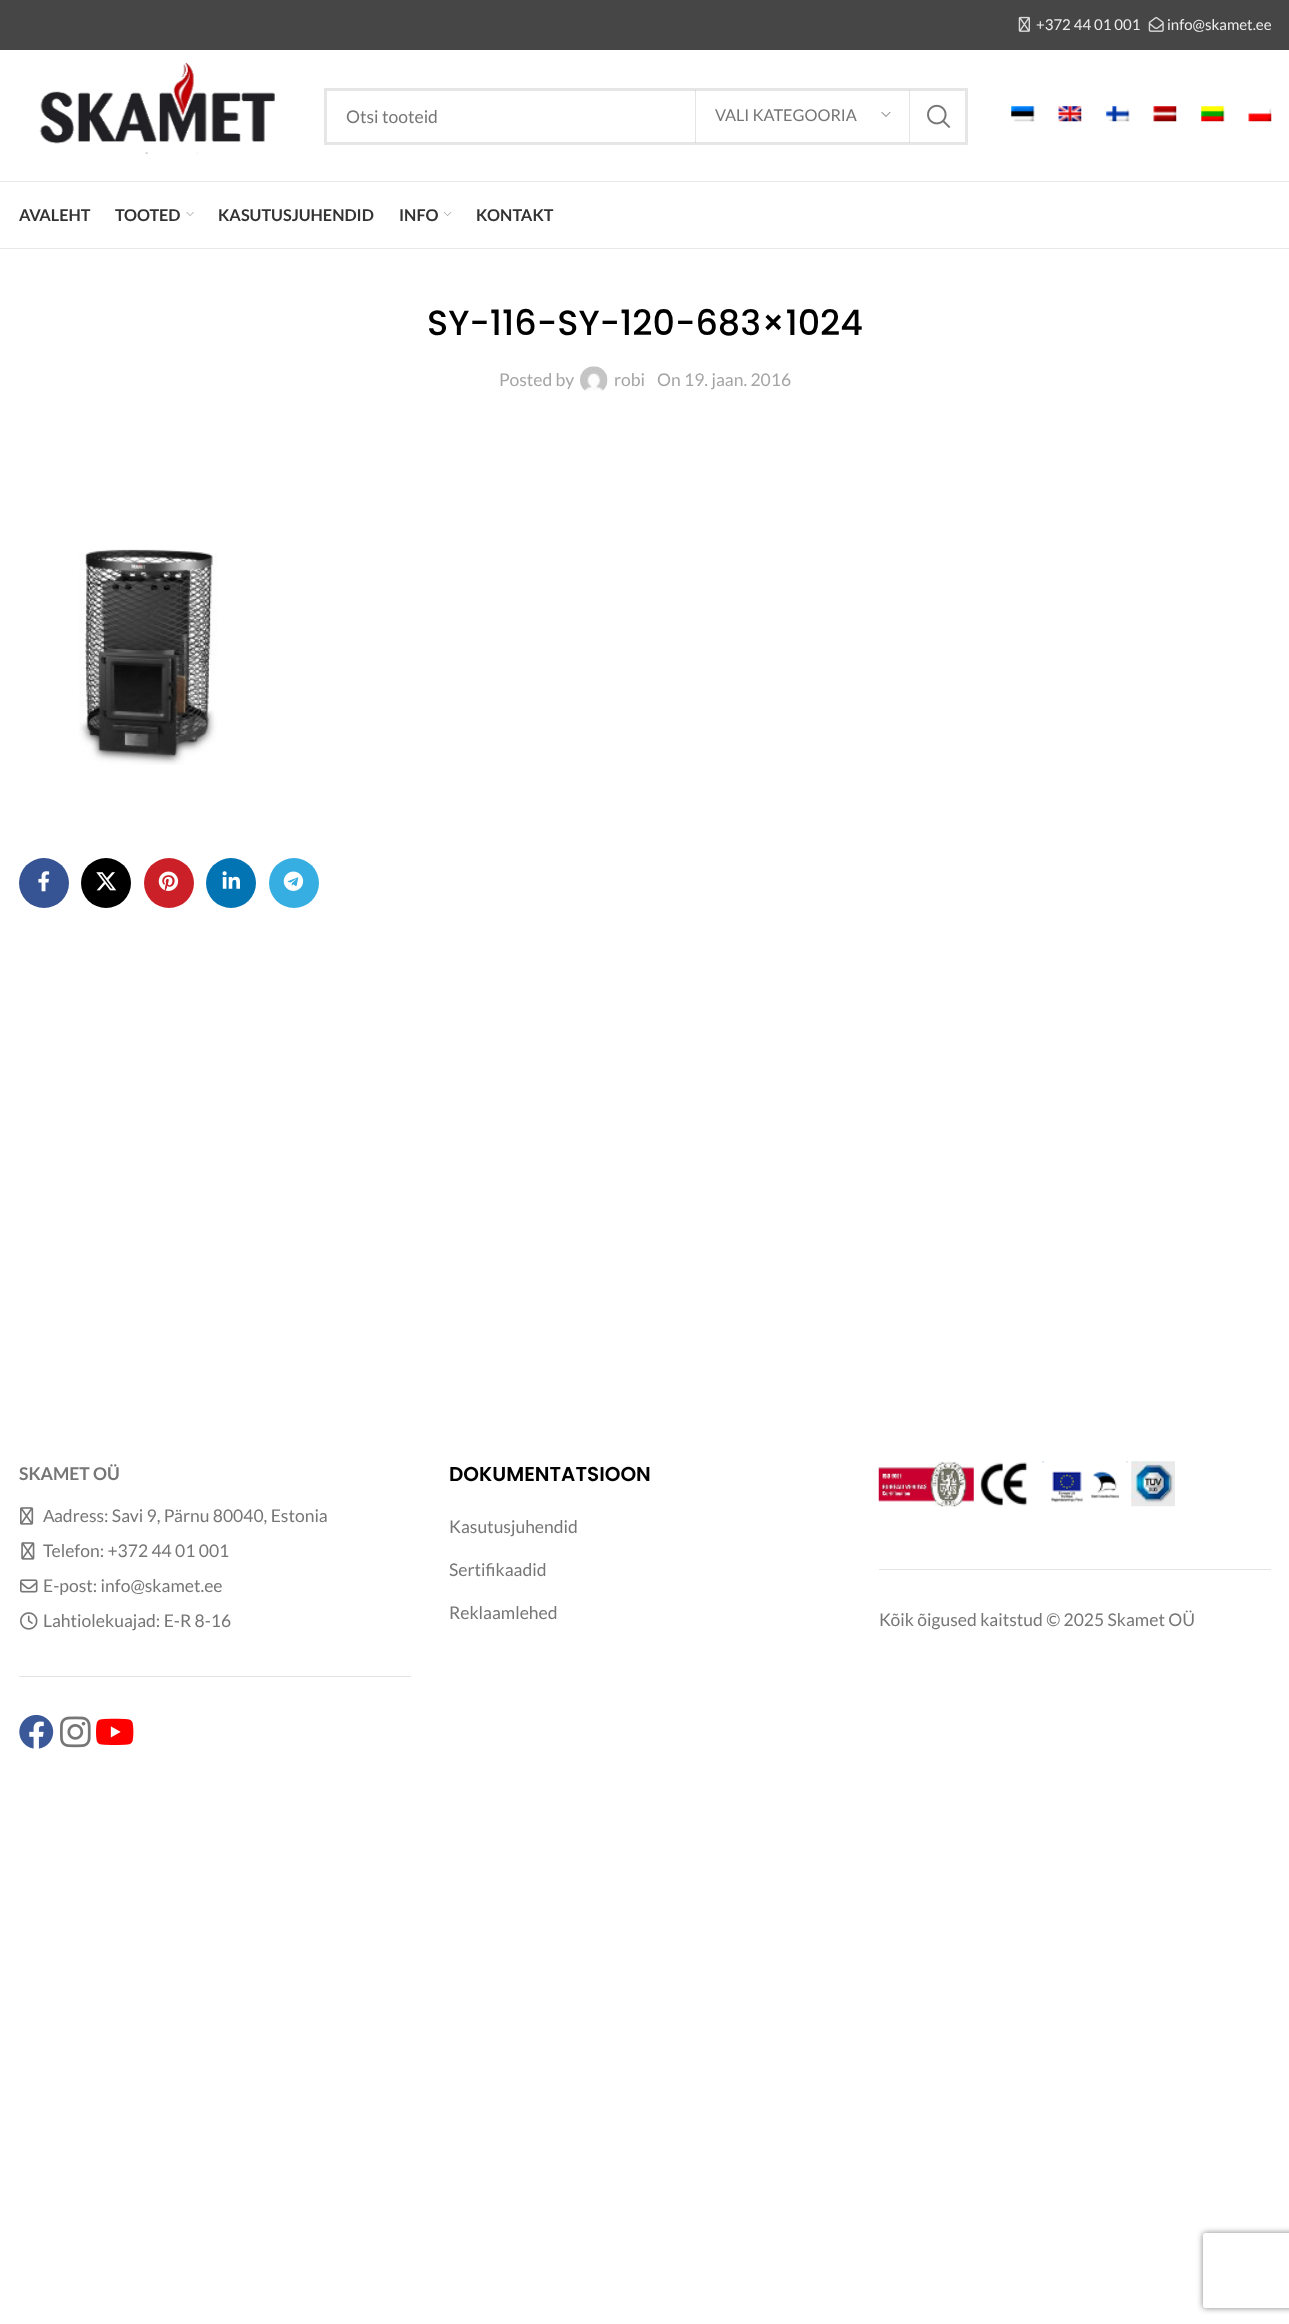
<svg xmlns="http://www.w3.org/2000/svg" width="1289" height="2324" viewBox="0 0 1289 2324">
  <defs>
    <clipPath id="clip1"><path d="M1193 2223H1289V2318H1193ZM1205.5 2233H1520.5C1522 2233 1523 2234 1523 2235.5V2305.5C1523 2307 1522 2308 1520.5 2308H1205.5C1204 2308 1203 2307 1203 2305.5V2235.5C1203 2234 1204 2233 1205.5 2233Z" clip-rule="evenodd"/></clipPath>
  </defs>
  <rect width="100%" height="100%" fill="#fff"/>
  <path d="M0 0h1289v50H0z" fill="#464646"/>
  <image x="1018" y="16" width="12" height="16" href="img/1.png"/>
  <image x="1148" y="16" width="16" height="16" href="img/2.png"/>
  <path d="M0 181h1289v1H0z" fill="#e8e8e8"/>
  <image x="39" y="62" width="236" height="92" href="img/3.png"/>
  <path d="M325.5 89.5h641v54H325.5z" fill="none" stroke="#e6e6e6" stroke-width="3"/>
  <path d="M909 90h1v53H909z" fill="#0000001a"/>
  <path d="M695 90h1v53H695z" fill="#0000001a"/>
  <image x="881" y="111" width="10" height="6" href="img/4.png"/>
  <image x="927" y="104" width="24" height="24" href="img/5.png"/>
  <image x="1011" y="106" width="24" height="16" href="img/6.png"/>
  <image x="1058" y="106" width="24" height="16" href="img/7.png"/>
  <image x="1106" y="106" width="24" height="16" href="img/8.png"/>
  <image x="1153" y="106" width="24" height="16" href="img/9.png"/>
  <image x="1201" y="106" width="24" height="16" href="img/10.png"/>
  <image x="1248" y="108" width="24" height="14" href="img/11.png"/>
  <path d="M0 248h1289v1H0z" fill="#e8e8e8"/>
  <image x="186" y="212" width="8" height="4" href="img/12.png"/>
  <image x="443" y="212" width="9" height="4" href="img/13.png"/>
  <image x="580" y="366" width="28" height="25" href="img/14.png"/>
  <image x="79" y="549" width="138" height="216" href="img/15.png"/>
  <circle cx="44" cy="883" r="25" fill="#365493"/>
  <image x="38" y="871" width="12" height="21" href="img/16.png"/>
  <circle cx="106" cy="883" r="25" fill="#000"/>
  <image x="96" y="872" width="21" height="19" href="img/17.png"/>
  <circle cx="169" cy="883" r="25" fill="#cb2027"/>
  <image x="158" y="871" width="21" height="20" href="img/18.png"/>
  <circle cx="231" cy="883" r="25" fill="#0274b3"/>
  <image x="222" y="871" width="18" height="18" href="img/19.png"/>
  <circle cx="294" cy="883" r="25" fill="#37aee2"/>
  <image x="283" y="871" width="21" height="20" href="img/20.png"/>
  <path d="M19 1676h392v1H19z" fill="#e4e4e4"/>
  <image x="20" y="1507" width="14" height="18" href="img/21.png"/>
  <image x="21" y="1542" width="14" height="18" href="img/22.png"/>
  <image x="20" y="1579" width="18" height="14" href="img/23.png"/>
  <image x="20" y="1612" width="18" height="18" href="img/24.png"/>
  <image x="19" y="1714" width="35" height="35" href="img/25.png"/>
  <image x="60" y="1716" width="31" height="32" href="img/26.png"/>
  <image x="96" y="1718" width="38" height="27" href="img/27.png"/>
  <path d="M879 1569h392v1H879z" fill="#e4e4e4"/>
  <image x="878" y="1461" width="96" height="46" href="img/28.png"/>
  <image x="980" y="1462" width="48" height="44" href="img/29.png"/>
  <image x="1042" y="1461" width="86" height="42" href="img/30.png"/>
  <image x="1131" y="1461" width="44" height="46" href="img/31.png"/>
  <g clip-path="url(#clip1)">
    <rect x="1203" y="2233" width="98" height="75" rx="2.5" fill="#808080" filter="blur(3px)"/>
  </g>
  <g font-family="Lato" font-size="15" fill="#ededed">
    <text x="1036" y="30">+372 44 01 001</text>
    <text x="1167" y="30">info@skamet.ee</text>
  </g>
  <text x="346" y="123" font-family="Lato" font-size="17.5" fill="#767676">Otsi tooteid</text>
  <text x="715" y="121" font-family="Lato" font-size="16.25" fill="#767676">VALI KATEGOORIA</text>
  <g font-family="Lato" font-size="16.25" font-weight="bold" fill="#333">
    <text x="19" y="221">AVALEHT</text>
    <text x="115" y="221">TOOTED</text>
    <text x="218" y="221">KASUTUSJUHENDID</text>
    <text x="399" y="221">INFO</text>
    <text x="476" y="221">KONTAKT</text>
  </g>
  <text x="427" y="335" font-family="Poppins" font-size="35" font-weight="500" fill="#000">SY-116-SY-120-683×1024</text>
  <g font-family="Lato" font-size="17.5" fill="#a5a5a5">
    <text x="499" y="386">Posted by</text>
    <text x="614" y="386">robi</text>
    <text x="657" y="386">On 19. jaan. 2016</text>
  </g>
  <text x="19" y="1480" font-family="Lato" font-size="17.5" font-weight="bold" fill="#767676">SKAMET OÜ</text>
  <text x="43" y="1522" font-family="Liberation Sans" font-size="17.5" fill="#767676">А</text>
  <g font-family="Lato" font-size="17.5" fill="#767676">
    <text x="54" y="1522">adress: Savi 9, Pärnu 80040, Estonia</text>
    <text x="43" y="1557">Telefon: +372 44 01 001</text>
    <text x="43" y="1592">E-post: info@skamet.ee</text>
    <text x="43" y="1627">Lahtiolekuajad: E-R 8-16</text>
  </g>
  <text x="449" y="1481" font-family="Poppins" font-size="20" font-weight="600" fill="#000">DOKUMENTATSIOON</text>
  <g font-family="Lato" font-size="17.5" fill="#767676">
    <text x="449" y="1533">Kasutusjuhendid</text>
    <text x="449" y="1576">Sertifikaadid</text>
    <text x="449" y="1619">Reklaamlehed</text>
    <text x="879" y="1626">Kõik õigused kaitstud © 2025 Skamet OÜ</text>
  </g>
</svg>
